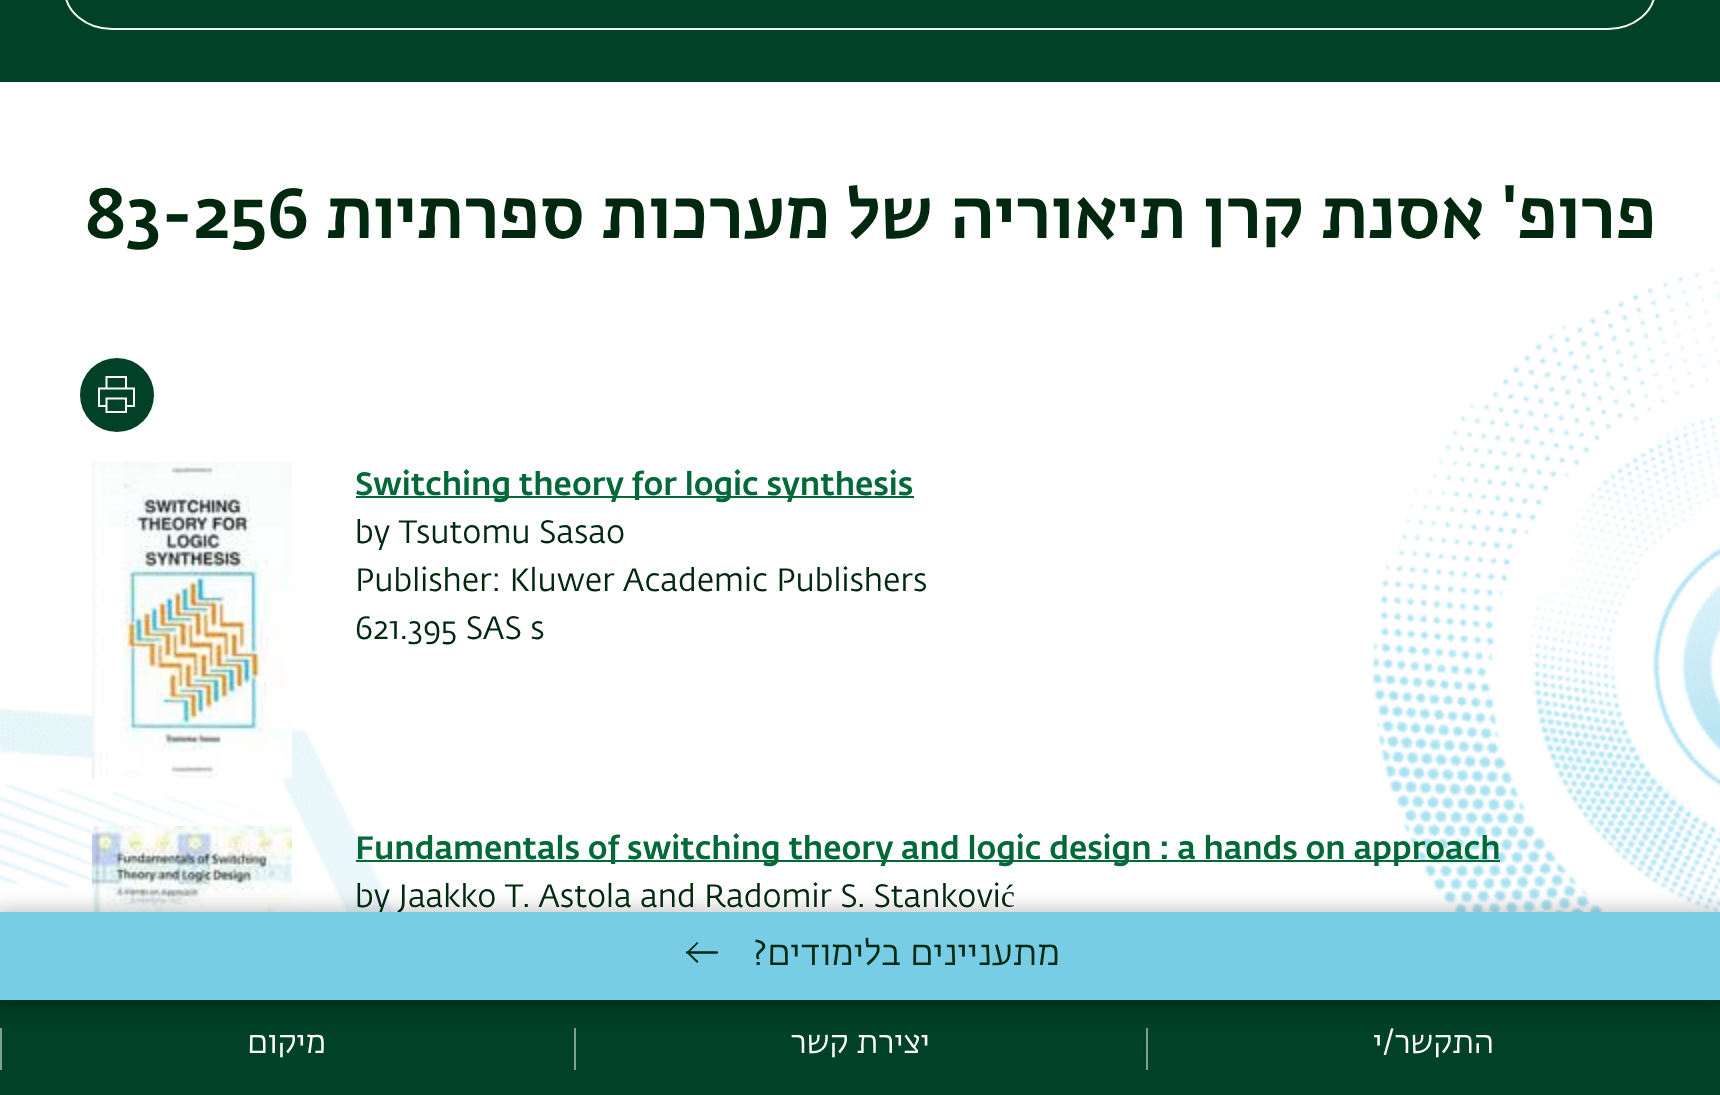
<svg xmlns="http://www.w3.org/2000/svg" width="1720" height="1095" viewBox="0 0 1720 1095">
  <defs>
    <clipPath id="clip1"><path d="M686 940h32v22H686z"/></clipPath>
  </defs>
  <rect width="100%" height="100%" fill="#fff"/>
  <path d="M0 0h1720v82H0z" fill="#004128"/>
  <rect x="65" y="-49" width="1590" height="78" rx="47" fill="none" stroke="#f5faf0" stroke-width="2"/>
  <circle cx="117" cy="395" r="37" fill="#004128"/>
  <path d="M126 398.5V412H106.5V398.5ZM126 377V388.5H106.5V377ZM106.5 406H99V388.5H134V406H126" fill="none" stroke="#fff" stroke-width="2" stroke-linecap="square"/>
  <image x="0" y="708" width="396" height="204" href="img/3.png"/>
  <image x="92" y="462" width="200" height="316" href="img/1.png"/>
  <path d="M356 496h558v2H356z" fill="#006937"/>
  <image x="92" y="826" width="200" height="86" href="img/2.png"/>
  <image x="1372" y="268" width="348" height="644" href="img/4.png"/>
  <path d="M356 860h1144v2H356z" fill="#006937"/>
  <path d="M0 1000h1720v95H0z" fill="#004128"/>
  <path d="M0 1028h2v42H0z" fill="#80a094"/>
  <path d="M574 1028h2v42H574z" fill="#80a094"/>
  <path d="M1146 1028h2v42H1146z" fill="#80a094"/>
  <path d="M-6 910h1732v100H-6z" fill="#00000040" filter="blur(10px)"/>
  <text x="85" y="238" font-family="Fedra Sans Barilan" font-size="70" font-weight="500" fill="#00280f">83-256</text>
  <text x="1656" y="238" font-family="Fedra Sans Barilan" font-size="70" font-weight="500" direction="rtl" fill="#00280f">פרופ' אסנת קרן תיאוריה של מערכות ספרתיות</text>
  <text x="355" y="495" font-family="Fedra Sans Barilan" font-size="32" font-weight="500" fill="#006937">Switching theory for logic synthesis</text>
  <g font-family="Fedra Sans Barilan" font-size="32" fill="#00280f">
    <text x="355" y="543">by Tsutomu Sasao</text>
    <text x="355" y="591">Publisher: Kluwer Academic Publishers</text>
    <text x="355" y="639">621.395 SAS s</text>
  </g>
  <text x="355" y="859" font-family="Fedra Sans Barilan" font-size="32" font-weight="500" fill="#006937">Fundamentals of switching theory and logic design : a hands on approach</text>
  <text x="355" y="907" font-family="Fedra Sans Barilan" font-size="32" fill="#00280f">by Jaakko T. Astola and Radomir S. Stanković</text>
  <path d="M0 912h1720v88H0z" fill="#78cde6"/>
  <g clip-path="url(#clip1)">
    <path d="M718.5 952.5H679.5" fill="none" stroke="#00280f" stroke-width="1.9"/>
  </g>
  <path d="M697 963L698.5 961.5L690 953.5H716.5V951.5H690L698.5 943L697 942L686.5 952.5Z" fill="#00280f"/>
  <text x="1060" y="965" font-family="Fedra Sans Barilan" font-size="36" direction="rtl" fill="#00280f">מתעניינים בלימודים?</text>
  <g font-family="Fedra Sans Barilan" font-size="32" direction="rtl" fill="#fff">
    <text x="326" y="1053">מיקום</text>
    <text x="930" y="1053">יצירת קשר</text>
    <text x="1494" y="1053">התקשר/י</text>
  </g>
</svg>
